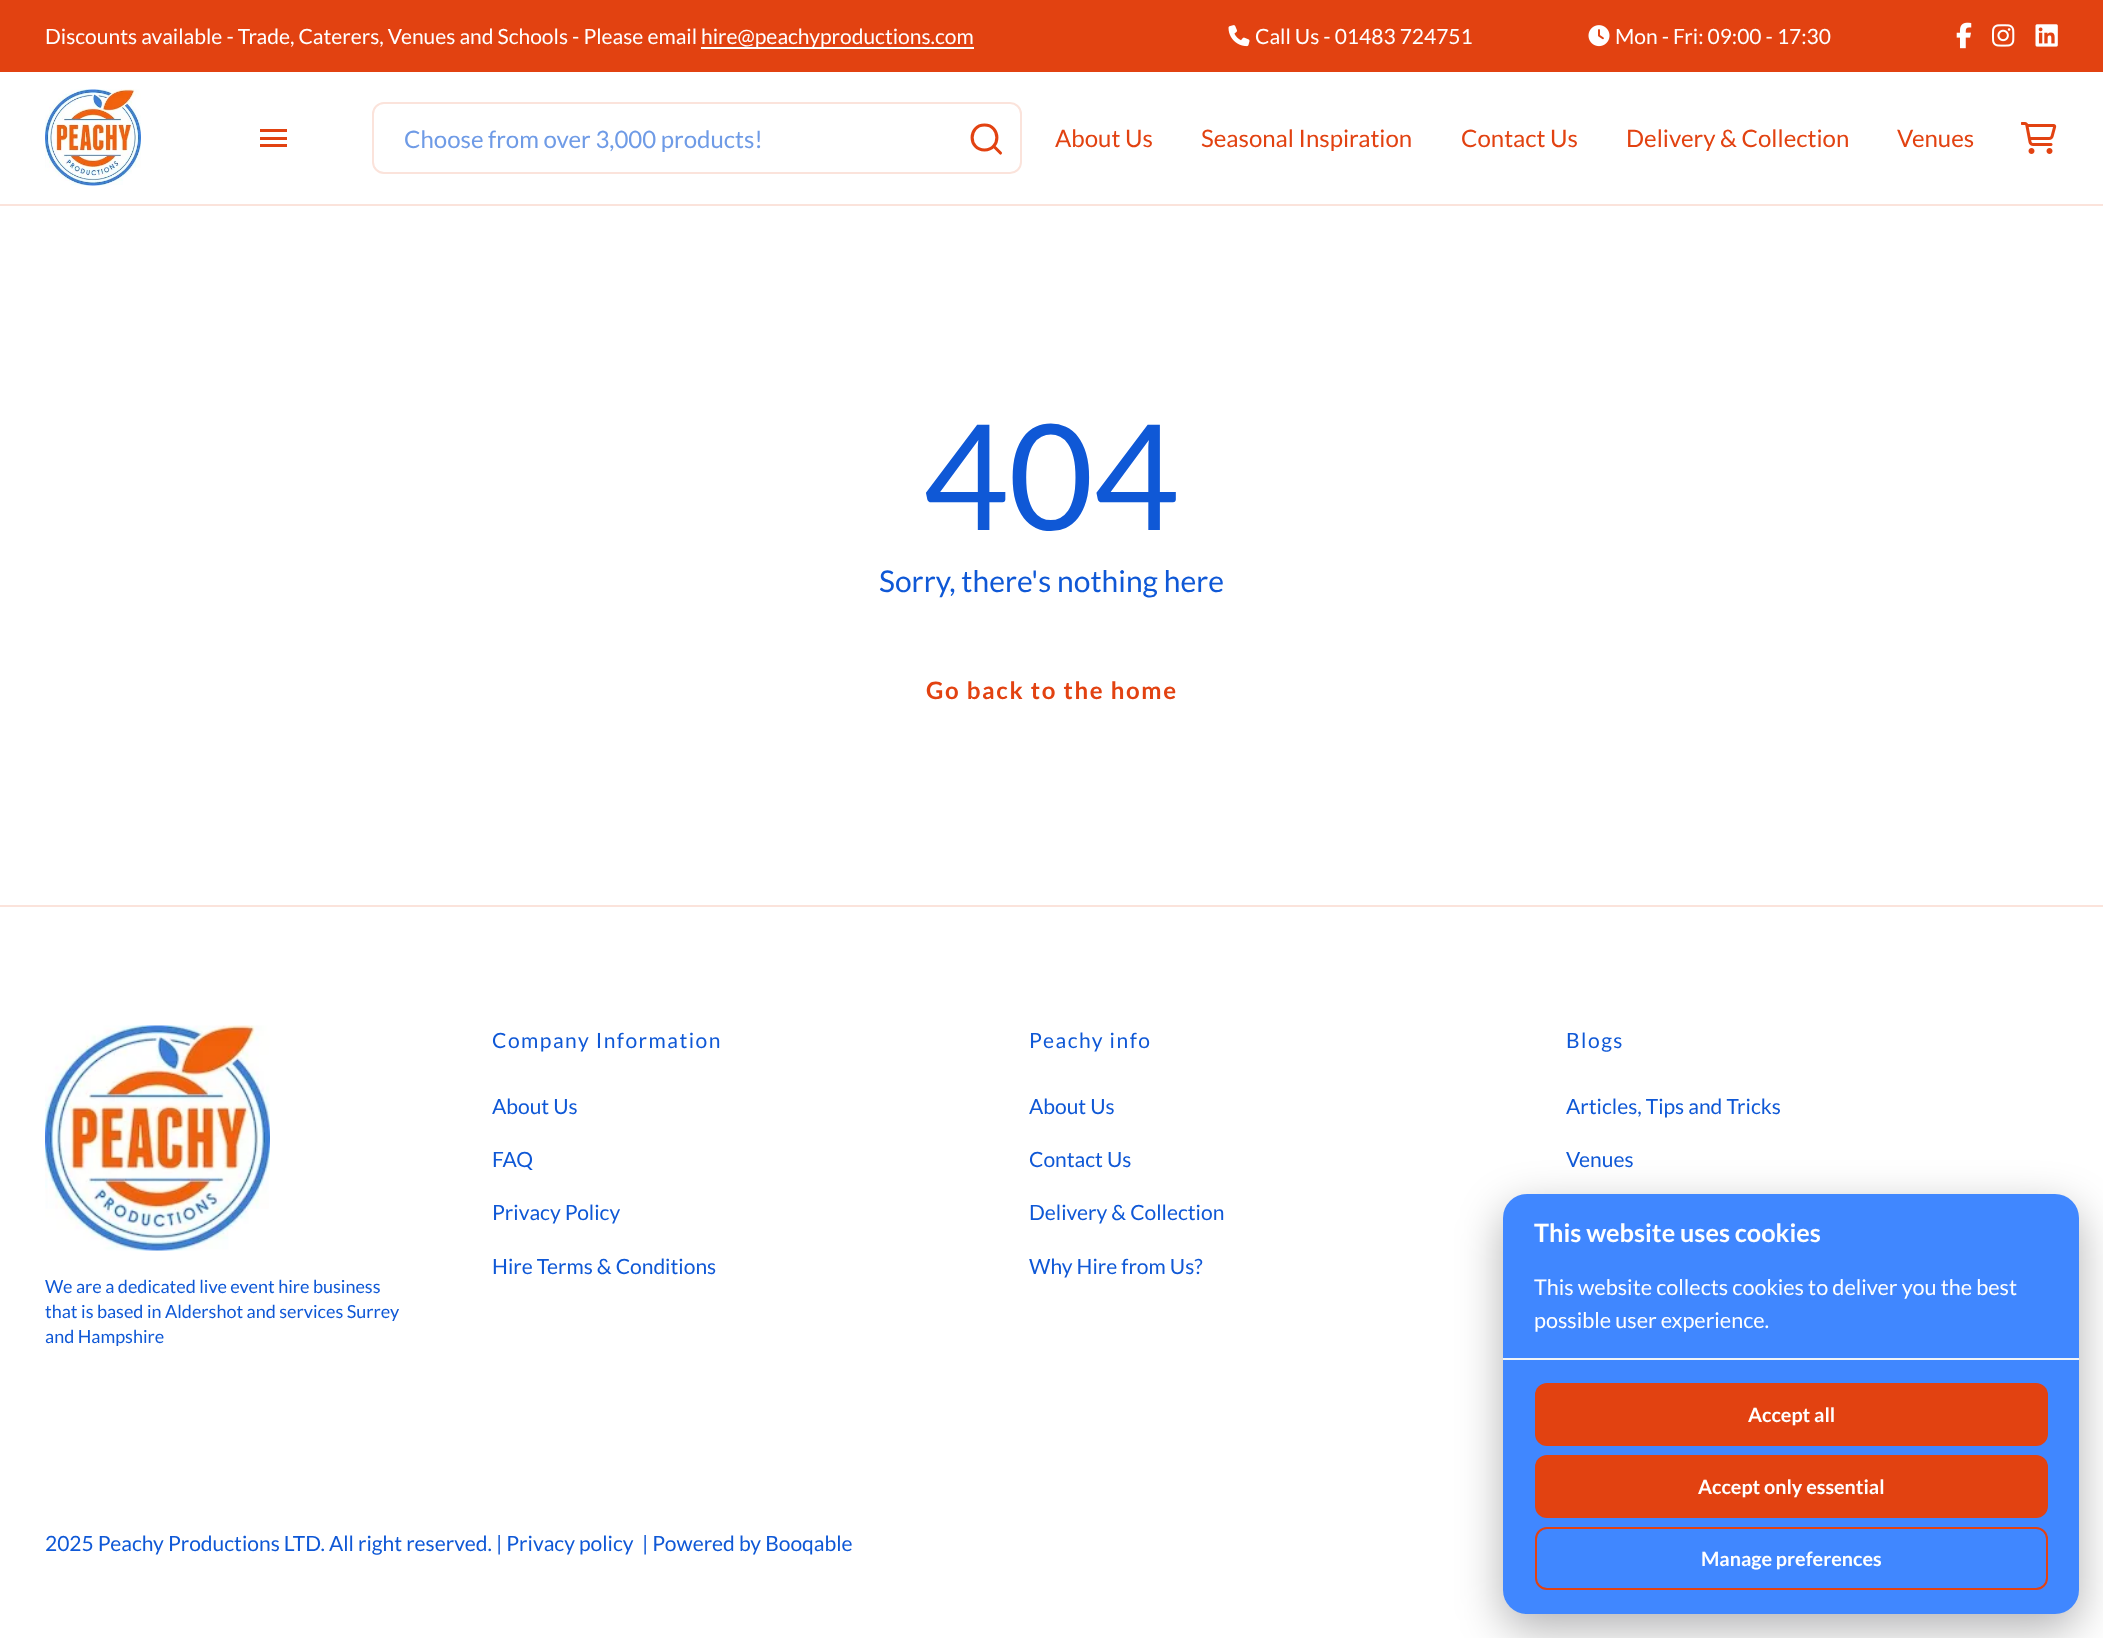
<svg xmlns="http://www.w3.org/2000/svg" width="2103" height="1638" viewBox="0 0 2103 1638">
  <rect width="100%" height="100%" fill="#fff"/>
  <path d="M0 0h2103v72H0z" fill="#e24211"/>
  <path d="M701 47h273v2H701z" fill="#fff"/>
  <image x="1228" y="25" width="22" height="22" href="img/1.png"/>
  <image x="1588" y="25" width="22" height="22" href="img/2.png"/>
  <image x="1956" y="22" width="16" height="27" href="img/3.png"/>
  <image x="1992" y="24" width="23" height="23" href="img/4.png"/>
  <image x="2035" y="24" width="23" height="23" href="img/5.png"/>
  <path d="M0 204h2103v2H0z" fill="#fbe3db"/>
  <image x="45" y="89" width="96" height="97" href="img/6.png"/>
  <path d="M260 129h27v3H260z" fill="#e24211"/>
  <path d="M260 137h27v3H260z" fill="#e24211"/>
  <path d="M260 144h27v3H260z" fill="#e24211"/>
  <rect x="373" y="103" width="648" height="70" rx="11" fill="none" stroke="#fbe3db" stroke-width="2"/>
  <path d="M984.5 150C1001 150 1001 125 984.5 125C968 125 968 150 984.5 150ZM1000.5 153L993.5 146" fill="none" stroke="#e24211" stroke-width="3.1" stroke-linecap="round" stroke-linejoin="round"/>
  <image x="2021" y="122" width="36" height="32" href="img/7.png"/>
  <path d="M0 905h2103v2H0z" fill="#fbe3db"/>
  <image x="45" y="1025" width="225" height="226" href="img/8.png"/>
  <rect x="1503" y="1209" width="576" height="420" rx="24" fill="#0000024d" filter="blur(22.5px)"/>
  <rect x="1503" y="1194" width="576" height="420" rx="24" fill="#4087ff"/>
  <path d="M1503 1358h576v2H1503z" fill="#f0f4f7"/>
  <rect x="1535" y="1383" width="513" height="63" rx="12" fill="#e24211"/>
  <rect x="1535" y="1455" width="513" height="63" rx="12" fill="#e24211"/>
  <rect x="1536" y="1528" width="511" height="61" rx="11" fill="none" stroke="#e24211" stroke-width="2"/>
  <g font-family="Lato" font-size="21" fill="#fff">
    <text x="45" y="44">Discounts available - Trade, Caterers, Venues and Schools - Please email</text>
    <text x="701" y="44">hire@peachyproductions.com</text>
    <text x="1255" y="44">Call Us - 01483 724751</text>
    <text x="1615" y="44">Mon - Fri: 09:00 - 17:30</text>
  </g>
  <text x="404" y="148" font-family="Lato" font-size="24" fill="#6f9be6">Choose from over 3,000 products!</text>
  <g font-family="Lato" font-size="24" fill="#e24211">
    <text x="1055" y="147">About Us</text>
    <text x="1201" y="147">Seasonal Inspiration</text>
    <text x="1461" y="147">Contact Us</text>
    <text x="1626" y="147">Delivery &amp; Collection</text>
    <text x="1897" y="147">Venues</text>
  </g>
  <text x="923" y="530" font-family="Lato" font-size="147" fill="#0f58d6">404</text>
  <text x="879" y="592" font-family="Lato" font-size="30" fill="#0f58d6">Sorry, there's nothing here</text>
  <text x="926" y="699" font-family="Lato" font-size="24" font-weight="bold" letter-spacing="1.7" fill="#e24211">Go back to the home</text>
  <text x="492" y="1048" font-family="Lato" font-size="21" letter-spacing="1.5" fill="#0f58d6">Company Information</text>
  <g font-family="Lato" font-size="21" fill="#0f58d6">
    <text x="492" y="1114">About Us</text>
    <text x="492" y="1167">FAQ</text>
    <text x="492" y="1220">Privacy Policy</text>
    <text x="492" y="1274">Hire Terms &amp; Conditions</text>
  </g>
  <text x="1029" y="1048" font-family="Lato" font-size="21" letter-spacing="1.5" fill="#0f58d6">Peachy info</text>
  <g font-family="Lato" font-size="21" fill="#0f58d6">
    <text x="1029" y="1114">About Us</text>
    <text x="1029" y="1167">Contact Us</text>
    <text x="1029" y="1220">Delivery &amp; Collection</text>
    <text x="1029" y="1274">Why Hire from Us?</text>
  </g>
  <text x="1566" y="1048" font-family="Lato" font-size="21" letter-spacing="1.5" fill="#0f58d6">Blogs</text>
  <g font-family="Lato" font-size="21" fill="#0f58d6">
    <text x="1566" y="1114">Articles, Tips and Tricks</text>
    <text x="1566" y="1167">Venues</text>
  </g>
  <g font-family="Lato" font-size="18" fill="#0f58d6">
    <text x="45" y="1293">We are a dedicated live event hire business</text>
    <text x="45" y="1318">that is based in Aldershot and services Surrey</text>
    <text x="45" y="1343">and Hampshire</text>
  </g>
  <g font-family="Lato" font-size="21" fill="#0f58d6">
    <text x="45" y="1551">2025 Peachy Productions LTD. All right reserved. | Privacy policy</text>
    <text x="642" y="1551">| Powered by Booqable</text>
  </g>
  <text x="1534" y="1242" font-family="Lato" font-size="25.25" font-weight="bold" fill="#fff">This website uses cookies</text>
  <g font-family="Lato" font-size="21.6" fill="#fff">
    <text x="1534" y="1295">This website collects cookies to deliver you the best</text>
    <text x="1534" y="1328">possible user experience.</text>
  </g>
  <g font-family="Lato" font-size="19.75" font-weight="bold" fill="#fff">
    <text x="1748" y="1422">Accept all</text>
    <text x="1698" y="1494">Accept only essential</text>
    <text x="1701" y="1566">Manage preferences</text>
  </g>
</svg>
